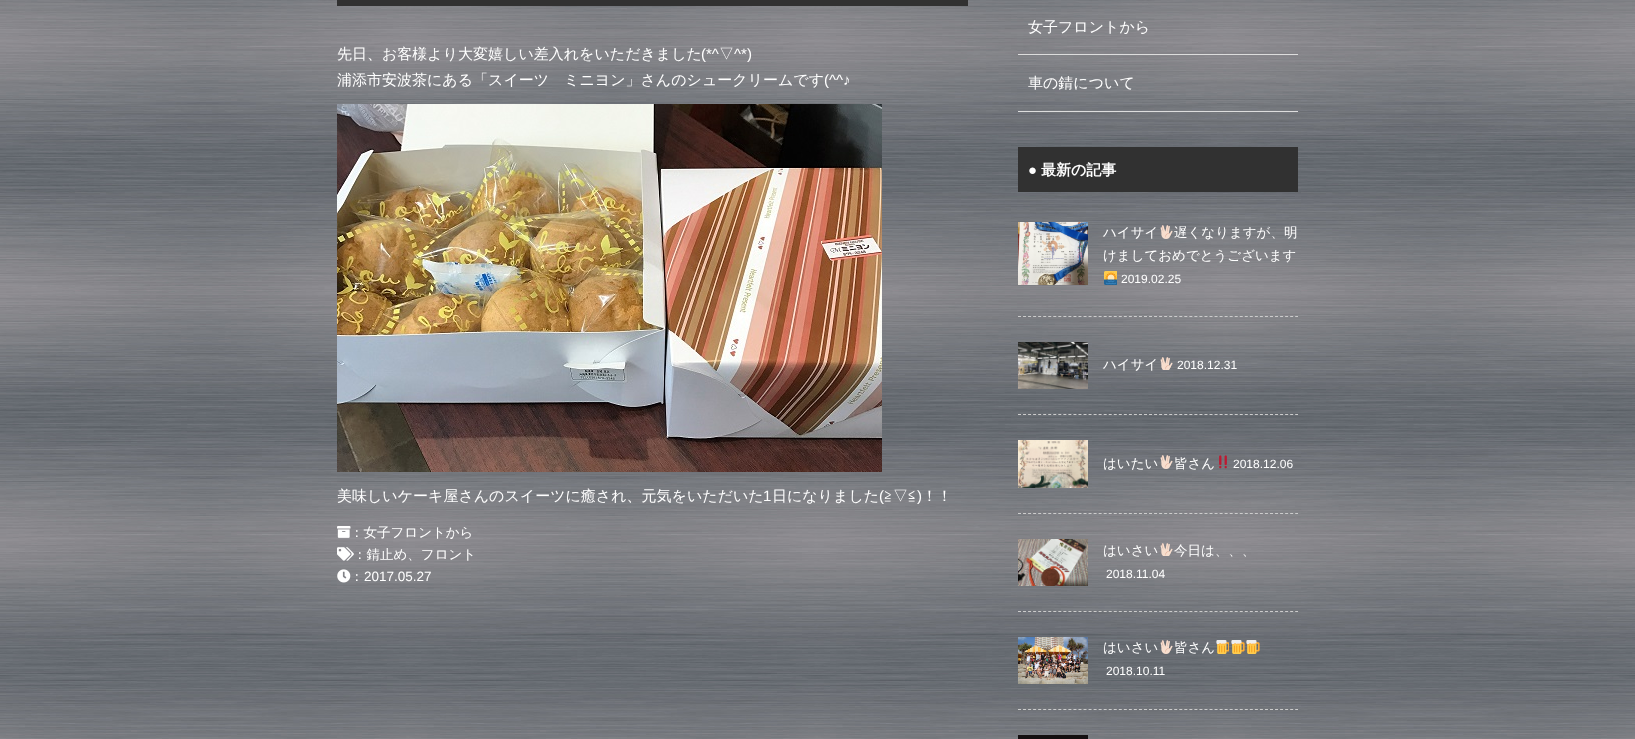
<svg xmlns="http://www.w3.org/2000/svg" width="1635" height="739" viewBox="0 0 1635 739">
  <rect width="100%" height="100%" fill="#fff"/>
  <image x="0" y="0" width="1635" height="739" href="img/1.png"/>
  <path d="M337 0h631v6H337z" fill="#313131"/>
  <image x="337" y="104" width="545" height="368" href="img/2.png"/>
  <image x="337" y="526" width="14" height="12" href="img/3.png"/>
  <image x="337" y="547" width="17" height="14" href="img/4.png"/>
  <image x="337" y="569" width="14" height="14" href="img/5.png"/>
  <path d="M1018 54h280v1H1018z" fill="#ddd"/>
  <path d="M1018 111h280v1H1018z" fill="#ddd"/>
  <path d="M1018 147h280v45H1018z" fill="#313131"/>
  <path d="M1018 316.5H1298" fill="none" stroke="#ccc" stroke-dasharray="3 2.04"/>
  <image x="1018" y="222" width="70" height="63" href="img/6.png"/>
  <image x="1160" y="225" width="13" height="14" href="img/7.png"/>
  <image x="1104" y="271" width="13" height="14" href="img/8.png"/>
  <path d="M1018 414.5H1298" fill="none" stroke="#ccc" stroke-dasharray="3 2.04"/>
  <image x="1018" y="342" width="70" height="47" href="img/9.png"/>
  <image x="1160" y="357" width="13" height="13" href="img/10.png"/>
  <path d="M1018 513.5H1298" fill="none" stroke="#ccc" stroke-dasharray="3 2.04"/>
  <image x="1018" y="440" width="70" height="48" href="img/11.png"/>
  <image x="1160" y="455" width="13" height="14" href="img/12.png"/>
  <image x="1219" y="455" width="8" height="14" href="img/13.png"/>
  <path d="M1018 611.5H1298" fill="none" stroke="#ccc" stroke-dasharray="3 2.04"/>
  <image x="1018" y="539" width="70" height="47" href="img/14.png"/>
  <image x="1160" y="543" width="13" height="13" href="img/15.png"/>
  <path d="M1018 709.5H1298" fill="none" stroke="#ccc" stroke-dasharray="3 2.04"/>
  <image x="1018" y="637" width="70" height="47" href="img/16.png"/>
  <image x="1160" y="640" width="13" height="14" href="img/17.png"/>
  <image x="1216" y="640" width="13" height="14" href="img/18.png"/>
  <image x="1231" y="640" width="14" height="14" href="img/19.png"/>
  <image x="1246" y="640" width="14" height="14" href="img/20.png"/>
  <path d="M1018 735h70v4H1018z" fill="#130f10"/>
  <text x="337" y="59" font-family="WenQuanYi Zen Hei" font-size="15" font-weight="500" fill="#fff">先日、お客様より大変嬉しい差入れをいただきました</text>
  <text x="701" y="59" font-family="Liberation Sans" font-size="15" fill="#fff">(*^</text>
  <text x="719" y="59" font-family="WenQuanYi Zen Hei" font-size="15" font-weight="500" fill="#fff">▽</text>
  <text x="734" y="59" font-family="Liberation Sans" font-size="15" fill="#fff">^*)</text>
  <text x="337" y="85" font-family="WenQuanYi Zen Hei" font-size="15" font-weight="500" fill="#fff">浦添市安波茶にある「スイーツ　ミニヨン」さんのシュークリームです</text>
  <text x="824" y="85" font-family="Liberation Sans" font-size="15" fill="#fff">(^^♪</text>
  <text x="337" y="501" font-family="WenQuanYi Zen Hei" font-size="15" font-weight="500" fill="#fff">美味しいケーキ屋さんのスイーツに癒され、元気をいただいた</text>
  <text x="763" y="501" font-family="Liberation Sans" font-size="15" fill="#fff">1</text>
  <text x="772" y="501" font-family="WenQuanYi Zen Hei" font-size="15" font-weight="500" fill="#fff">日になりました</text>
  <text x="879" y="501" font-family="Liberation Sans" font-size="15" fill="#fff">(</text>
  <text x="884" y="501" font-family="WenQuanYi Zen Hei" font-size="15" font-weight="500" fill="#fff">≧▽≦</text>
  <text x="917" y="501" font-family="Liberation Sans" font-size="15" fill="#fff">)</text>
  <text x="922" y="501" font-family="WenQuanYi Zen Hei" font-size="15" font-weight="500" fill="#fff">！！</text>
  <g font-family="WenQuanYi Zen Hei" font-size="13.5" font-weight="500" fill="#fff">
    <text x="350" y="537">：女子フロントから</text>
    <text x="353" y="559">：錆止め、フロント</text>
    <text x="350" y="581">：</text>
  </g>
  <text x="364" y="581" font-family="Liberation Sans" font-size="13.5" fill="#fff">2017.05.27</text>
  <g font-family="WenQuanYi Zen Hei" font-size="15" font-weight="500" fill="#fff">
    <text x="1028" y="32">女子フロントから</text>
    <text x="1028" y="88">車の錆について</text>
  </g>
  <text x="1028" y="175" font-family="Liberation Sans" font-size="15" font-weight="bold" fill="#fff">●</text>
  <text x="1041" y="175" font-family="WenQuanYi Zen Hei" font-size="15" font-weight="bold" fill="#fff">最新の記事</text>
  <g font-family="WenQuanYi Zen Hei" font-size="13.5" font-weight="500" fill="#fff">
    <text x="1103" y="237">ハイサイ</text>
    <text x="1174" y="237">遅くなりますが、明</text>
    <text x="1103" y="260">けましておめでとうございます</text>
  </g>
  <text x="1121" y="283" font-family="Liberation Sans" font-size="12" fill="#fff">2019.02.25</text>
  <text x="1103" y="369" font-family="WenQuanYi Zen Hei" font-size="13.5" font-weight="500" fill="#fff">ハイサイ</text>
  <text x="1177" y="369" font-family="Liberation Sans" font-size="12" fill="#fff">2018.12.31</text>
  <g font-family="WenQuanYi Zen Hei" font-size="13.5" font-weight="500" fill="#fff">
    <text x="1103" y="468">はいたい</text>
    <text x="1174" y="468">皆さん</text>
  </g>
  <text x="1233" y="468" font-family="Liberation Sans" font-size="12" fill="#fff">2018.12.06</text>
  <g font-family="WenQuanYi Zen Hei" font-size="13.5" font-weight="500" fill="#fff">
    <text x="1103" y="555">はいさい</text>
    <text x="1174" y="555">今日は、、、</text>
  </g>
  <text x="1106" y="578" font-family="Liberation Sans" font-size="12" fill="#fff">2018.11.04</text>
  <g font-family="WenQuanYi Zen Hei" font-size="13.5" font-weight="500" fill="#fff">
    <text x="1103" y="652">はいさい</text>
    <text x="1174" y="652">皆さん</text>
  </g>
  <text x="1106" y="675" font-family="Liberation Sans" font-size="12" fill="#fff">2018.10.11</text>
</svg>
